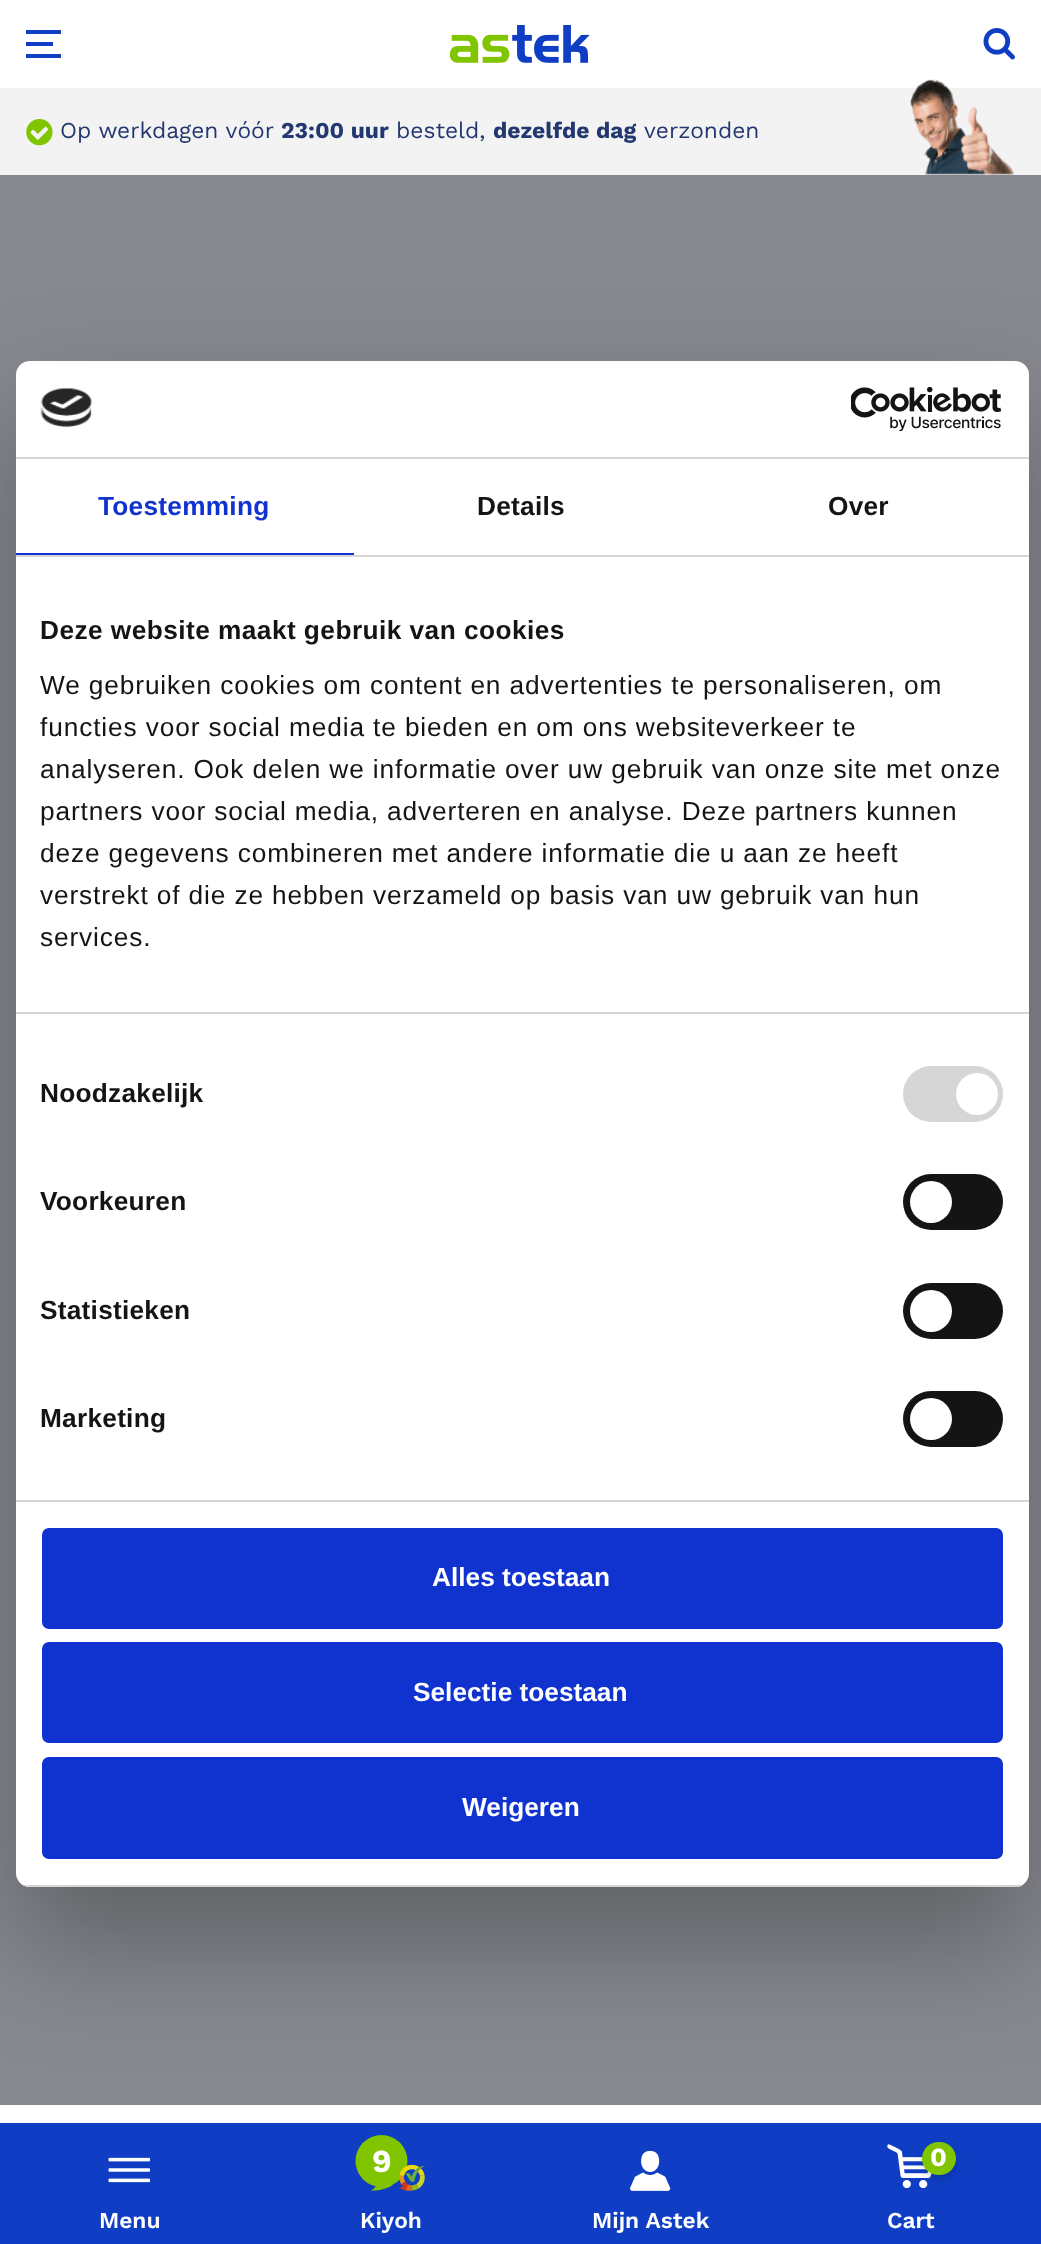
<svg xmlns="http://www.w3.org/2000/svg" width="1041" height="2244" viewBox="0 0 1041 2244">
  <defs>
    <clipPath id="clip1"><rect x="16" y="361" width="1013" height="1526" rx="14"/></clipPath>
  </defs>
  <rect width="100%" height="100%" fill="#fff"/>
  <path d="M26 30h35v4H26z" fill="#0f3ec4"/>
  <path d="M26 42h27v4H26z" fill="#0f3ec4"/>
  <path d="M26 54h35v4H26z" fill="#0f3ec4"/>
  <image x="450" y="25" width="140" height="38" href="img/1.png"/>
  <image x="983" y="28" width="32" height="32" href="img/2.png"/>
  <path d="M0 88h1041v87H0z" fill="#f3f3f3"/>
  <image x="26" y="119" width="27" height="27" href="img/3.png"/>
  <image x="910" y="79" width="104" height="96" href="img/4.png"/>
  <path d="M0 2123h1041v121H0z" fill="#0f3ec4"/>
  <image x="108" y="2157" width="42" height="26" href="img/5.png"/>
  <circle cx="381.5" cy="2161" r="26" fill="#80c500"/>
  <path d="M371.5 2190C373.5 2189.5 376 2186 377 2184.5H393.5C384 2191.5 368.5 2191 371.5 2190Z" fill="#80c500"/>
  <image x="399" y="2165" width="26" height="26" href="img/6.png"/>
  <image x="630" y="2150" width="41" height="41" href="img/7.png"/>
  <image x="887" y="2144" width="45" height="45" href="img/8.png"/>
  <rect x="922" y="2146" width="34" height="33" rx="16.5" fill="#00000026" filter="blur(3.5px)"/>
  <rect x="922" y="2142" width="34" height="33" rx="16.5" fill="#80c500"/>
  <path d="M0 175h1041v1930H0z" fill="#87898f"/>
  <rect x="16" y="417" width="1013" height="1526" rx="14" fill="#0000004d" filter="blur(59.5px)"/>
  <rect x="16" y="361" width="1013" height="1526" rx="14" fill="#fff"/>
  <path d="M16 457h1013v2H16z" fill="#d6d6d6"/>
  <image x="40" y="388" width="53" height="40" href="img/9.png"/>
  <image x="851" y="387" width="151" height="44" href="img/10.png"/>
  <path d="M16 555h1013v2H16z" fill="#d6d6d6"/>
  <path d="M16 553h338v2H16z" fill="#1032cf"/>
  <path d="M16 1012h1013v2H16z" fill="#d6d6d6"/>
  <path d="M16 1500h1013v2H16z" fill="#d6d6d6"/>
  <rect x="903" y="1066" width="100" height="56" rx="28" fill="#d6d6d6"/>
  <circle cx="977" cy="1094" r="21" fill="#fff"/>
  <rect x="903" y="1174" width="100" height="56" rx="28" fill="#141414"/>
  <circle cx="931" cy="1202" r="21" fill="#fff"/>
  <rect x="903" y="1283" width="100" height="56" rx="28" fill="#141414"/>
  <circle cx="931" cy="1311" r="21" fill="#fff"/>
  <rect x="903" y="1391" width="100" height="56" rx="28" fill="#141414"/>
  <circle cx="931" cy="1419" r="21" fill="#fff"/>
  <g clip-path="url(#clip1)">
    <path d="M16 1885h1013v2H16z" fill="#d6d6d6"/>
  </g>
  <rect x="44" y="1530" width="957" height="97" rx="5" fill="#1032cf" stroke="#1032cf" stroke-width="4"/>
  <rect x="44" y="1644" width="957" height="97" rx="5" fill="#1032cf" stroke="#1032cf" stroke-width="4"/>
  <rect x="44" y="1759" width="957" height="98" rx="5" fill="#1032cf" stroke="#1032cf" stroke-width="4"/>
  <text x="60" y="138" font-family="Work Sans" font-size="22.75" fill="#233770">Op werkdagen vóór</text>
  <text x="281" y="138" font-family="Work Sans" font-size="22.75" font-weight="bold" fill="#233770">23:00 uur</text>
  <text x="396" y="138" font-family="Work Sans" font-size="22.75" fill="#233770">besteld,</text>
  <text x="493" y="138" font-family="Work Sans" font-size="22.75" font-weight="bold" fill="#233770">dezelfde dag</text>
  <text x="644" y="138" font-family="Work Sans" font-size="22.75" fill="#233770">verzonden</text>
  <text x="99" y="2228" font-family="Work Sans" font-size="22.75" font-weight="600" fill="#fff">Menu</text>
  <text x="372" y="2172" font-family="Work Sans" font-size="32" font-weight="bold" fill="#fff">9</text>
  <g font-family="Work Sans" font-size="22.75" font-weight="600" fill="#fff">
    <text x="360" y="2228">Kiyoh</text>
    <text x="592" y="2228">Mijn Astek</text>
  </g>
  <text x="930" y="2166" font-family="Work Sans" font-size="26.25" font-weight="bold" fill="#fff">0</text>
  <text x="887" y="2228" font-family="Work Sans" font-size="22.75" font-weight="600" fill="#fff">Cart</text>
  <text x="98" y="515" font-family="Liberation Sans" font-size="26.25" font-weight="bold" letter-spacing="0.25" fill="#1032cf">Toestemming</text>
  <g font-family="Liberation Sans" font-size="26.25" font-weight="bold" letter-spacing="0.25" fill="#141414">
    <text x="477" y="515">Details</text>
    <text x="828" y="515">Over</text>
  </g>
  <text x="40" y="639" font-family="Liberation Sans" font-size="26.25" font-weight="bold" letter-spacing="0.45" fill="#141414">Deze website maakt gebruik van cookies</text>
  <g font-family="Liberation Sans" font-size="26.25" letter-spacing="0.88" fill="#141414">
    <text x="40" y="694">We gebruiken cookies om content en advertenties te personaliseren, om</text>
    <text x="40" y="736">functies voor social media te bieden en om ons websiteverkeer te</text>
    <text x="40" y="778">analyseren. Ook delen we informatie over uw gebruik van onze site met onze</text>
    <text x="40" y="820">partners voor social media, adverteren en analyse. Deze partners kunnen</text>
    <text x="40" y="862">deze gegevens combineren met andere informatie die u aan ze heeft</text>
    <text x="40" y="904">verstrekt of die ze hebben verzameld op basis van uw gebruik van hun</text>
    <text x="40" y="946">services.</text>
  </g>
  <g font-family="Liberation Sans" font-size="26.25" font-weight="bold" letter-spacing="0.25" fill="#141414">
    <text x="40" y="1102">Noodzakelijk</text>
    <text x="40" y="1210">Voorkeuren</text>
    <text x="40" y="1319">Statistieken</text>
    <text x="40" y="1427">Marketing</text>
  </g>
  <g font-family="Liberation Sans" font-size="26.25" font-weight="bold" fill="#fff">
    <text x="432" y="1586">Alles toestaan</text>
    <text x="413" y="1701">Selectie toestaan</text>
    <text x="462" y="1816">Weigeren</text>
  </g>
</svg>
